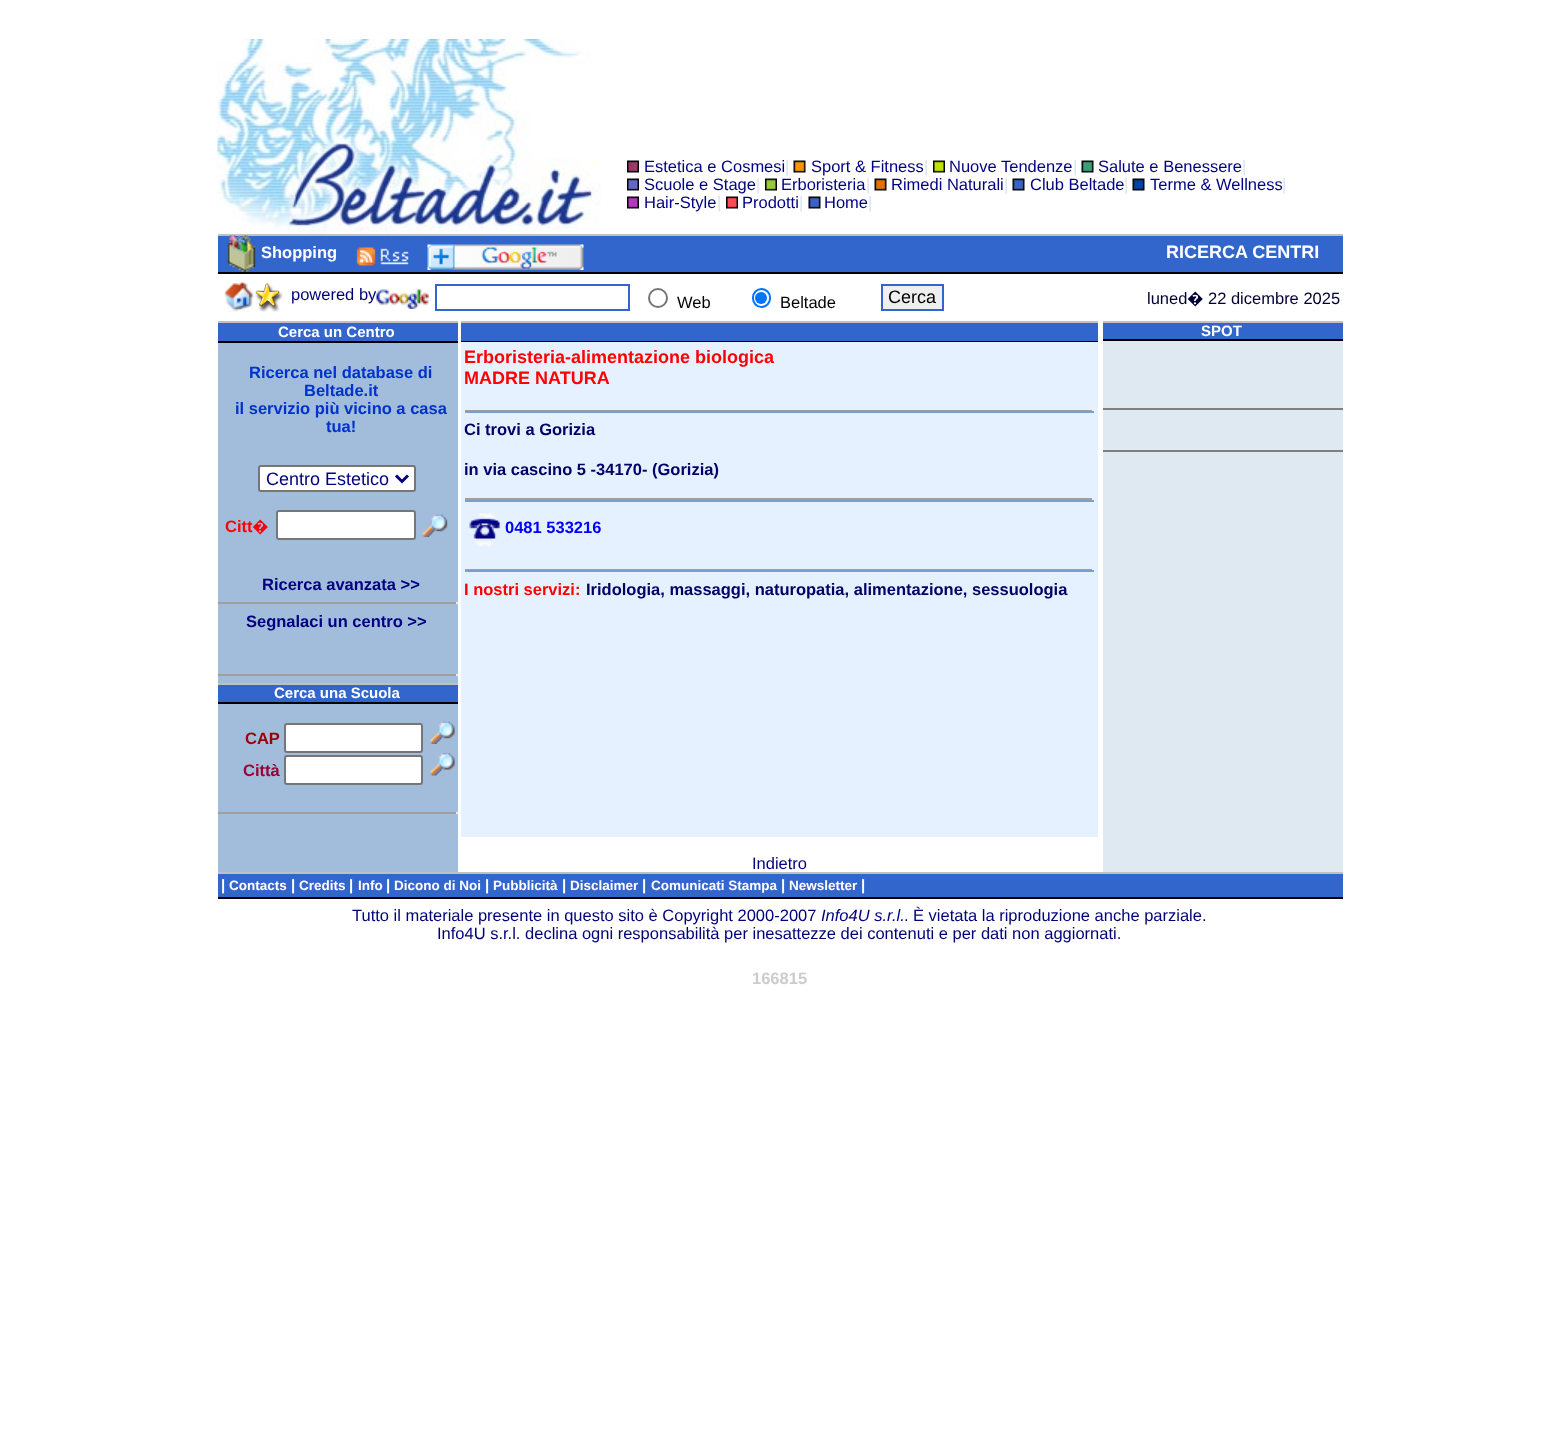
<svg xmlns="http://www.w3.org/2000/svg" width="1549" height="1446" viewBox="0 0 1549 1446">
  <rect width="100%" height="100%" fill="#fff"/>
  <image x="217" y="39" width="384" height="195" href="img/1.png"/>
  <image x="627" y="160" width="12" height="13" href="img/2.png"/>
  <image x="793" y="160" width="13" height="13" href="img/3.png"/>
  <image x="933" y="160" width="12" height="13" href="img/4.png"/>
  <image x="1081" y="160" width="13" height="13" href="img/5.png"/>
  <image x="627" y="178" width="12" height="13" href="img/6.png"/>
  <image x="765" y="178" width="12" height="13" href="img/7.png"/>
  <image x="874" y="178" width="13" height="13" href="img/8.png"/>
  <image x="1012" y="178" width="13" height="13" href="img/9.png"/>
  <image x="1132" y="178" width="13" height="13" href="img/10.png"/>
  <image x="627" y="196" width="12" height="13" href="img/11.png"/>
  <image x="726" y="196" width="12" height="13" href="img/12.png"/>
  <image x="808" y="196" width="13" height="13" href="img/9.png"/>
  <path d="M218 234h4v39H218z" fill="#36c"/>
  <path d="M218 234h1125v2H218z" fill="#c0c0c0"/>
  <path d="M218 272h1125v2H218z" fill="#000"/>
  <path d="M222 236h1121v36H222z" fill="#36c"/>
  <image x="227" y="235" width="29" height="37" href="img/13.png"/>
  <image x="356" y="247" width="53" height="19" href="img/14.png"/>
  <image x="427" y="244" width="157" height="26" href="img/15.png"/>
  <image x="224" y="282" width="30" height="30" href="img/16.png"/>
  <image x="255" y="283" width="28" height="29" href="img/17.png"/>
  <path d="M436 285h193v25H436z" fill="none" stroke="#36c" stroke-width="2"/>
  <circle cx="658" cy="298" r="9" fill="none" stroke="#767676" stroke-width="2"/>
  <rect x="753" y="289" width="17" height="18" rx="8.5" fill="none" stroke="#0075ff" stroke-width="2"/>
  <circle cx="761" cy="298" r="6" fill="#0075ff"/>
  <path d="M882 285h61v25H882z" fill="#efefef" stroke="#36c" stroke-width="2"/>
  <path d="M218 343h240v529H218z" fill="#a2bcdb"/>
  <path d="M218 323h240v18H218z" fill="#36c"/>
  <path d="M218 321h240v2H218z" fill="#c0c0c0"/>
  <path d="M218 341h240v2H218z" fill="#000"/>
  <rect x="259" y="466" width="156" height="25" rx="2" fill="#fff" stroke="#767676" stroke-width="2"/>
  <path d="M396 475.5L402 481.5L408 475.5" fill="none" stroke="#000080" stroke-width="3"/>
  <rect x="277" y="511" width="138" height="28" rx="2" fill="#fff" stroke="#767676" stroke-width="2"/>
  <image x="422" y="514" width="26" height="23" href="img/19.png"/>
  <path d="M218 602h240v2H218z" fill="#9f9f9f"/>
  <path d="M456 602h2v2H456z" fill="#eee"/>
  <path d="M218 674h240v2H218z" fill="#9f9f9f"/>
  <path d="M456 674h2v2H456z" fill="#eee"/>
  <path d="M218 685h240v17H218z" fill="#36c"/>
  <path d="M218 683h240v2H218z" fill="#c0c0c0"/>
  <path d="M218 702h240v2H218z" fill="#000"/>
  <rect x="285" y="724" width="137" height="28" rx="2" fill="#fff" stroke="#767676" stroke-width="2"/>
  <image x="430" y="721" width="25" height="23" href="img/20.png"/>
  <rect x="285" y="756" width="137" height="28" rx="2" fill="#fff" stroke="#767676" stroke-width="2"/>
  <image x="430" y="753" width="25" height="23" href="img/21.png"/>
  <path d="M218 812h240v2H218z" fill="#9f9f9f"/>
  <path d="M456 812h2v2H456z" fill="#eee"/>
  <path d="M461 323h637v18H461z" fill="#36c"/>
  <path d="M461 321h637v2H461z" fill="#c0c0c0"/>
  <path d="M461 341h637v1H461z" fill="#000"/>
  <path d="M461 342h637v495H461z" fill="#e6f1ff"/>
  <path d="M465 410h629v1H465z" fill="#9f9f9f"/>
  <path d="M1092 410h2v3H1092z" fill="#eee"/>
  <path d="M465 411h629v2H465z" fill="#7b9fcc"/>
  <path d="M465 410h2v3H465z" fill="#9f9f9f"/>
  <path d="M465 498h629v2H465z" fill="#9f9f9f"/>
  <path d="M1092 498h2v3H1092z" fill="#eee"/>
  <path d="M465 500h629v2H465z" fill="#7b9fcc"/>
  <path d="M465 498h2v3H465z" fill="#9f9f9f"/>
  <image x="468" y="513" width="33" height="34" href="img/22.png"/>
  <path d="M465 569h629v1H465z" fill="#9f9f9f"/>
  <path d="M1092 569h2v3H1092z" fill="#eee"/>
  <path d="M465 570h629v2H465z" fill="#7b9fcc"/>
  <path d="M465 569h2v3H465z" fill="#9f9f9f"/>
  <path d="M1103 341h240v531H1103z" fill="#dfe9f2"/>
  <path d="M1103 323h240v16H1103z" fill="#36c"/>
  <path d="M1103 321h240v2H1103z" fill="#c0c0c0"/>
  <path d="M1103 339h240v2H1103z" fill="#000"/>
  <path d="M1103 408h240v2H1103z" fill="#808080"/>
  <path d="M1103 450h240v2H1103z" fill="#808080"/>
  <path d="M218 874h1125v23H218z" fill="#36c"/>
  <path d="M218 872h1125v2H218z" fill="#c0c0c0"/>
  <path d="M218 897h1125v2H218z" fill="#000"/>
  <text x="644" y="172" font-family="Liberation Sans" font-size="16.5" fill="#000080">Estetica e Cosmesi</text>
  <text x="785" y="172" font-family="Liberation Sans" font-size="16.5" fill="#d9e3f0">|</text>
  <text x="811" y="172" font-family="Liberation Sans" font-size="16.5" fill="#000080">Sport &amp; Fitness</text>
  <text x="924" y="172" font-family="Liberation Sans" font-size="16.5" fill="#d9e3f0">|</text>
  <text x="949" y="172" font-family="Liberation Sans" font-size="16.5" fill="#000080">Nuove Tendenze</text>
  <text x="1073" y="172" font-family="Liberation Sans" font-size="16.5" fill="#d9e3f0">|</text>
  <text x="1098" y="172" font-family="Liberation Sans" font-size="16.5" fill="#000080">Salute e Benessere</text>
  <text x="1242" y="172" font-family="Liberation Sans" font-size="16.5" fill="#d9e3f0">|</text>
  <text x="644" y="190" font-family="Liberation Sans" font-size="16.5" fill="#000080">Scuole e Stage</text>
  <text x="756" y="190" font-family="Liberation Sans" font-size="16.5" fill="#d9e3f0">|</text>
  <text x="781" y="190" font-family="Liberation Sans" font-size="16.5" fill="#000080">Erboristeria</text>
  <text x="866" y="190" font-family="Liberation Sans" font-size="16.5" fill="#d9e3f0">|</text>
  <text x="891" y="190" font-family="Liberation Sans" font-size="16.5" fill="#000080">Rimedi Naturali</text>
  <text x="1004" y="190" font-family="Liberation Sans" font-size="16.5" fill="#d9e3f0">|</text>
  <text x="1030" y="190" font-family="Liberation Sans" font-size="16.5" fill="#000080">Club Beltade</text>
  <text x="1124" y="190" font-family="Liberation Sans" font-size="16.5" fill="#d9e3f0">|</text>
  <text x="1150" y="190" font-family="Liberation Sans" font-size="16.5" fill="#000080">Terme &amp; Wellness</text>
  <text x="1282" y="190" font-family="Liberation Sans" font-size="16.5" fill="#d9e3f0">|</text>
  <text x="644" y="208" font-family="Liberation Sans" font-size="16.5" fill="#000080">Hair-Style</text>
  <text x="717" y="208" font-family="Liberation Sans" font-size="16.5" fill="#d9e3f0">|</text>
  <text x="742" y="208" font-family="Liberation Sans" font-size="16.5" fill="#000080">Prodotti</text>
  <text x="799" y="208" font-family="Liberation Sans" font-size="16.5" fill="#d9e3f0">|</text>
  <text x="824" y="208" font-family="Liberation Sans" font-size="16.5" fill="#000080">Home</text>
  <text x="868" y="208" font-family="Liberation Sans" font-size="16.5" fill="#d9e3f0">|</text>
  <text x="261" y="258" font-family="Liberation Sans" font-size="16.5" font-weight="bold" fill="#fff">Shopping</text>
  <text x="1166" y="258" font-family="Liberation Sans" font-size="18" font-weight="bold" fill="#fff">RICERCA CENTRI</text>
  <text x="291" y="300" font-family="Liberation Sans" font-size="16.5" fill="#007">powered by</text>
  <image x="376" y="289" width="53" height="20" href="img/18.png"/>
  <g font-family="Liberation Sans" font-size="16.5" fill="#000">
    <text x="677" y="308">Web</text>
    <text x="780" y="308">Beltade</text>
  </g>
  <text x="888" y="303" font-family="Liberation Sans" font-size="18" fill="#000">Cerca</text>
  <text x="1147" y="304" font-family="Liberation Sans" font-size="16.5" fill="#003">luned</text>
  <text x="1187" y="304" font-family="Noto Sans" font-size="16.5" fill="#003">�</text>
  <text x="1208" y="304" font-family="Liberation Sans" font-size="16.5" fill="#003">22 dicembre 2025</text>
  <text x="278" y="337" font-family="Liberation Sans" font-size="15" font-weight="bold" fill="#fff">Cerca un Centro</text>
  <g font-family="Liberation Sans" font-size="16.5" font-weight="bold" fill="#03c">
    <text x="249" y="378">Ricerca nel database di</text>
    <text x="304" y="396">Beltade.it</text>
    <text x="235" y="414">il servizio più vicino a casa</text>
    <text x="326" y="432">tua!</text>
  </g>
  <text x="266" y="485" font-family="Liberation Sans" font-size="18" fill="#000080">Centro Estetico</text>
  <text x="225" y="532" font-family="Liberation Sans" font-size="16.5" font-weight="bold" fill="#f00">Citt</text>
  <text x="252" y="532" font-family="Noto Sans" font-size="16.5" font-weight="bold" fill="#f00">�</text>
  <g font-family="Liberation Sans" font-size="16.5" font-weight="bold" fill="#000080">
    <text x="262" y="590">Ricerca avanzata &gt;&gt;</text>
    <text x="246" y="627">Segnalaci un centro &gt;&gt;</text>
  </g>
  <text x="274" y="698" font-family="Liberation Sans" font-size="15" font-weight="bold" fill="#fff">Cerca una Scuola</text>
  <text x="245" y="744" font-family="Liberation Sans" font-size="16.5" font-weight="bold" fill="#900">CAP</text>
  <text x="243" y="776" font-family="Liberation Sans" font-size="16.5" font-weight="bold" fill="#903">Città</text>
  <g font-family="Liberation Sans" font-size="18" font-weight="bold" fill="#f00">
    <text x="464" y="363">Erboristeria-alimentazione biologica</text>
    <text x="464" y="384">MADRE NATURA</text>
  </g>
  <g font-family="Liberation Sans" font-size="16.5" font-weight="bold" fill="#006">
    <text x="464" y="435">Ci trovi a Gorizia</text>
    <text x="464" y="475">in via cascino 5 -34170- (Gorizia)</text>
  </g>
  <text x="505" y="533" font-family="Liberation Sans" font-size="16.5" font-weight="bold" fill="#00f">0481 533216</text>
  <text x="464" y="595" font-family="Liberation Sans" font-size="16.5" font-weight="bold" fill="#f00">I nostri servizi:</text>
  <text x="586" y="595" font-family="Liberation Sans" font-size="16.5" font-weight="bold" fill="#006">Iridologia, massaggi, naturopatia, alimentazione, sessuologia</text>
  <text x="752" y="869" font-family="Liberation Sans" font-size="16.5" fill="#000080">Indietro</text>
  <g font-family="Liberation Sans" font-size="15" font-weight="bold" fill="#fff">
    <text x="1201" y="336">SPOT</text>
    <text x="221" y="890">|</text>
  </g>
  <text x="229" y="890" font-family="Liberation Sans" font-size="13.5" font-weight="bold" fill="#fff">Contacts</text>
  <text x="291" y="890" font-family="Liberation Sans" font-size="15" font-weight="bold" fill="#fff">|</text>
  <text x="299" y="890" font-family="Liberation Sans" font-size="13.5" font-weight="bold" fill="#fff">Credits</text>
  <text x="349" y="890" font-family="Liberation Sans" font-size="15" font-weight="bold" fill="#fff">|</text>
  <text x="358" y="890" font-family="Liberation Sans" font-size="13.5" font-weight="bold" fill="#fff">Info</text>
  <text x="386" y="890" font-family="Liberation Sans" font-size="15" font-weight="bold" fill="#fff">|</text>
  <text x="394" y="890" font-family="Liberation Sans" font-size="13.5" font-weight="bold" fill="#fff">Dicono di Noi</text>
  <text x="485" y="890" font-family="Liberation Sans" font-size="15" font-weight="bold" fill="#fff">|</text>
  <text x="493" y="890" font-family="Liberation Sans" font-size="13.5" font-weight="bold" fill="#fff">Pubblicità</text>
  <text x="562" y="890" font-family="Liberation Sans" font-size="15" font-weight="bold" fill="#fff">|</text>
  <text x="570" y="890" font-family="Liberation Sans" font-size="13.5" font-weight="bold" fill="#fff">Disclaimer</text>
  <text x="642" y="890" font-family="Liberation Sans" font-size="15" font-weight="bold" fill="#fff">|</text>
  <text x="651" y="890" font-family="Liberation Sans" font-size="13.5" font-weight="bold" fill="#fff">Comunicati Stampa</text>
  <text x="781" y="890" font-family="Liberation Sans" font-size="15" font-weight="bold" fill="#fff">|</text>
  <text x="789" y="890" font-family="Liberation Sans" font-size="13.5" font-weight="bold" fill="#fff">Newsletter</text>
  <text x="861" y="890" font-family="Liberation Sans" font-size="15" font-weight="bold" fill="#fff">|</text>
  <text x="352" y="921" font-family="Liberation Sans" font-size="16.5" fill="#007">Tutto il materiale presente in questo sito è Copyright 2000-2007</text>
  <text x="821" y="921" font-family="Liberation Sans" font-size="16.5" font-style="italic" fill="#000080">Info4U s.r.l.</text>
  <text x="904" y="921" font-family="Liberation Sans" font-size="16.5" fill="#000080">.</text>
  <g font-family="Liberation Sans" font-size="16.5" fill="#007">
    <text x="913" y="921">È vietata la riproduzione anche parziale.</text>
    <text x="437" y="939">Info4U s.r.l. declina ogni responsabilità per inesattezze dei contenuti e per dati non aggiornati.</text>
  </g>
  <text x="752" y="984" font-family="Liberation Sans" font-size="16.5" font-weight="bold" fill="#ccc">166815</text>
</svg>
